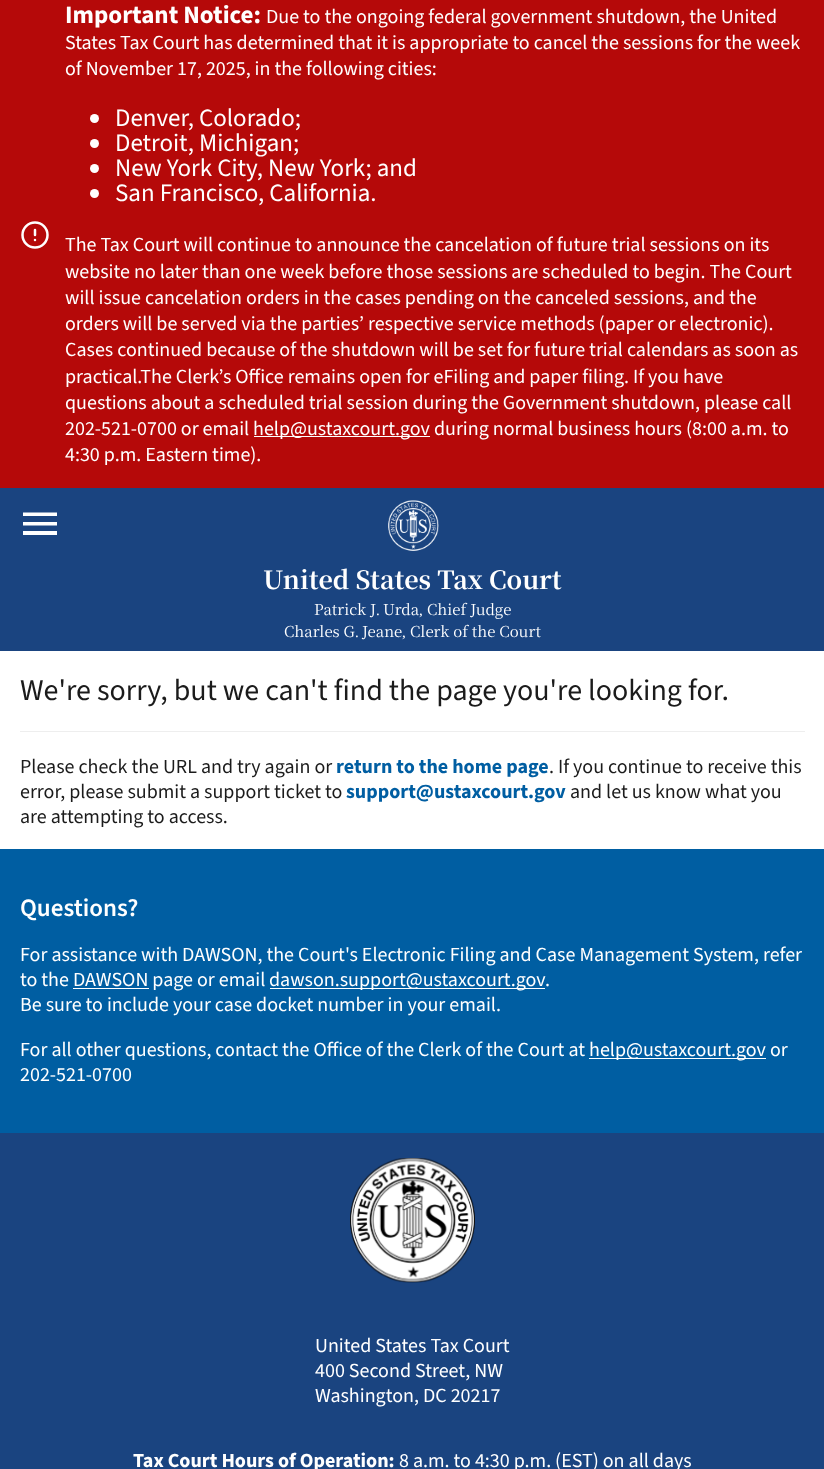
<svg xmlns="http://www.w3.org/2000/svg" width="824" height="1469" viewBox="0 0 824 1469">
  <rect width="100%" height="100%" fill="#fff"/>
  <path d="M0 0h824v488H0z" fill="#b50909"/>
  <circle cx="35" cy="235" r="12.5" fill="none" stroke="#fff" stroke-width="2.5"/>
  <path d="M35 230V235M35 240H35" fill="none" stroke="#fff" stroke-width="2.5" stroke-linecap="round" stroke-linejoin="round"/>
  <circle cx="94.5" cy="118.5" r="4.5" fill="#fff"/>
  <circle cx="94.5" cy="143.5" r="4.5" fill="#fff"/>
  <circle cx="94.5" cy="168.5" r="4.5" fill="#fff"/>
  <circle cx="94.5" cy="193.5" r="4.5" fill="#fff"/>
  <path d="M254 436h176v1H254z" fill="#fff"/>
  <path d="M0 488h824v163H0z" fill="#1a4480"/>
  <path d="M23 535V531H57V535ZM23 525.5V522H57V525.5ZM23 516V512.5H57V516Z" fill="#fff"/>
  <image x="388" y="500" width="51" height="51" href="img/1.png"/>
  <path d="M20 731h785v1H20z" fill="#eee"/>
  <path d="M0 849h824v284H0z" fill="#005ea2"/>
  <path d="M270 988h275v1H270z" fill="#fff"/>
  <path d="M73 988h76v1H73z" fill="#fff"/>
  <path d="M589 1058h177v1H589z" fill="#fff"/>
  <path d="M0 1133h824v336H0z" fill="#1a4480"/>
  <image x="350" y="1158" width="125" height="125" href="img/2.png"/>
  <text x="65" y="23" font-family="'Source Sans 3'" font-size="25" font-weight="bold" fill="#fff">Important Notice:</text>
  <g font-family="'Source Sans 3'" font-size="20" fill="#fff">
    <text x="266" y="23">Due to the ongoing federal government shutdown, the United</text>
    <text x="65" y="49">States Tax Court has determined that it is appropriate to cancel the sessions for the week</text>
    <text x="65" y="75">of November 17, 2025, in the following cities:</text>
  </g>
  <g font-family="'Source Sans 3'" font-size="25" fill="#fff">
    <text x="115" y="126">Denver, Colorado;</text>
    <text x="115" y="151">Detroit, Michigan;</text>
    <text x="115" y="176">New York City, New York; and</text>
    <text x="115" y="201">San Francisco, California.</text>
  </g>
  <g font-family="'Source Sans 3'" font-size="20" fill="#fff">
    <text x="65" y="251">The Tax Court will continue to announce the cancelation of future trial sessions on its</text>
    <text x="65" y="278">website no later than one week before those sessions are scheduled to begin. The Court</text>
    <text x="65" y="304">will issue cancelation orders in the cases pending on the canceled sessions, and the</text>
    <text x="65" y="330">orders will be served via the parties’ respective service methods (paper or electronic).</text>
    <text x="65" y="356">Cases continued because of the shutdown will be set for future trial calendars as soon as</text>
    <text x="65" y="383">practical.The Clerk’s Office remains open for eFiling and paper filing. If you have</text>
    <text x="65" y="409">questions about a scheduled trial session during the Government shutdown, please call</text>
    <text x="65" y="435">202-521-0700 or email</text>
    <text x="253" y="435">help@ustaxcourt.gov during normal business hours (8:00 a.m. to</text>
    <text x="65" y="461">4:30 p.m. Eastern time).</text>
  </g>
  <text x="263" y="589" font-family="Noto Serif JP" font-size="25" font-weight="bold" fill="#fff">United States Tax Court</text>
  <text x="314" y="615" font-family="Noto Serif JP" font-size="15" fill="#fff">Patrick J</text>
  <text x="376" y="615" font-family="Liberation Serif" font-size="15" fill="#fff">.</text>
  <text x="383" y="615" font-family="Noto Serif JP" font-size="15" fill="#fff">Urda</text>
  <text x="419" y="615" font-family="Liberation Serif" font-size="15" fill="#fff">,</text>
  <g font-family="Noto Serif JP" font-size="15" fill="#fff">
    <text x="427" y="615">Chief Judge</text>
    <text x="284" y="637">Charles G</text>
  </g>
  <text x="355" y="637" font-family="Liberation Serif" font-size="15" fill="#fff">.</text>
  <text x="362" y="637" font-family="Noto Serif JP" font-size="15" fill="#fff">Jeane</text>
  <text x="402" y="637" font-family="Liberation Serif" font-size="15" fill="#fff">,</text>
  <text x="410" y="637" font-family="Noto Serif JP" font-size="15" fill="#fff">Clerk of the Court</text>
  <text x="20" y="700" font-family="'Source Sans 3'" font-size="30" fill="#1b1b1b">We're sorry, but we can't find the page you're looking for.</text>
  <text x="20" y="773" font-family="'Source Sans 3'" font-size="20" fill="#1b1b1b">Please check the URL and try again or</text>
  <text x="336" y="773" font-family="'Source Sans 3'" font-size="20" font-weight="bold" fill="#005ea2">return to the home page</text>
  <g font-family="'Source Sans 3'" font-size="20" fill="#1b1b1b">
    <text x="549" y="773">. If you continue to receive this</text>
    <text x="20" y="798">error, please submit a support ticket to</text>
  </g>
  <text x="346" y="798" font-family="'Source Sans 3'" font-size="20" font-weight="bold" fill="#005ea2">support@ustaxcourt.gov</text>
  <g font-family="'Source Sans 3'" font-size="20" fill="#1b1b1b">
    <text x="570" y="798">and let us know what you</text>
    <text x="20" y="823">are attempting to access.</text>
  </g>
  <text x="20" y="916" font-family="'Source Sans 3'" font-size="25" font-weight="600" fill="#fff">Questions?</text>
  <g font-family="'Source Sans 3'" font-size="20" fill="#fff">
    <text x="20" y="961">For assistance with DAWSON, the Court's Electronic Filing and Case Management System, refer</text>
    <text x="20" y="986">to the DAWSON page or email</text>
    <text x="269" y="986">dawson.support@ustaxcourt.gov</text>
    <text x="545" y="986">.</text>
    <text x="20" y="1011">Be sure to include your case docket number in your email.</text>
    <text x="20" y="1056">For all other questions, contact the Office of the Clerk of the Court at</text>
    <text x="589" y="1056">help@ustaxcourt.gov or</text>
    <text x="20" y="1081">202-521-0700</text>
    <text x="315" y="1352">United States Tax Court</text>
    <text x="315" y="1377">400 Second Street, NW</text>
    <text x="315" y="1402">Washington, DC 20217</text>
  </g>
  <text x="133" y="1467" font-family="'Source Sans 3'" font-size="20" font-weight="bold" fill="#fff">Tax Court Hours of Operation:</text>
  <text x="399" y="1467" font-family="'Source Sans 3'" font-size="20" fill="#fff">8 a.m. to 4:30 p.m. (EST) on all days</text>
</svg>
